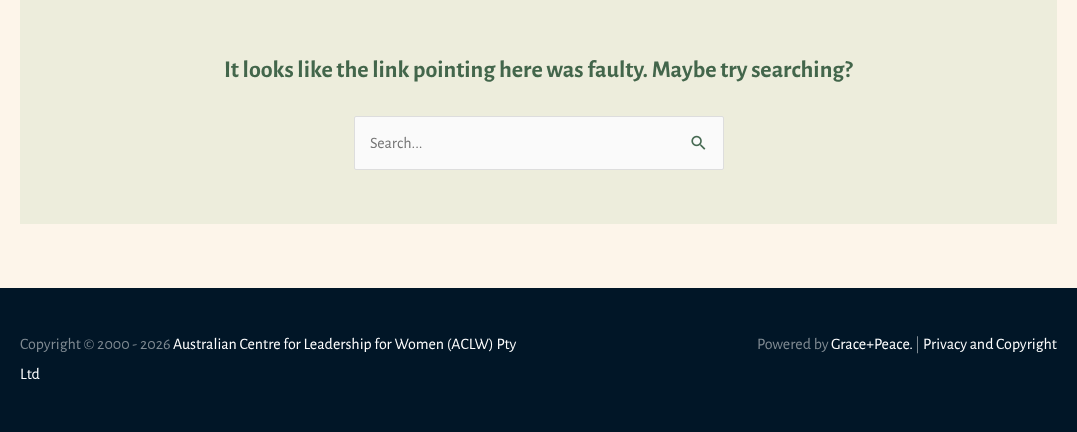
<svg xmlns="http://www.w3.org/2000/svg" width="1077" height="432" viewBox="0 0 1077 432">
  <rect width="100%" height="100%" fill="#fdf5ea"/>
  <path d="M20 0h1037v224H20z" fill="#ededdc"/>
  <rect x="354.5" y="116.5" width="369" height="53" rx="1.5" fill="#fafafa" stroke="#ddd"/>
  <image x="691" y="135" width="15" height="15" href="img/1.png"/>
  <path d="M0 288h1077v144H0z" fill="#011627"/>
  <text x="224" y="77" font-family="Alegreya Sans" font-size="24" font-weight="bold" fill="#43664b">It looks like the link pointing here was faulty. Maybe try searching?</text>
  <text x="370" y="148" font-family="Alegreya Sans" font-size="16" fill="#757575">Search...</text>
  <text x="20" y="349" font-family="Alegreya Sans" font-size="16" fill="#808b93">Copyright © 2000 - 2026</text>
  <g font-family="Alegreya Sans" font-size="16" fill="#fff">
    <text x="173" y="349">Australian Centre for Leadership for Women (ACLW) Pty</text>
    <text x="20" y="379">Ltd</text>
  </g>
  <text x="757" y="349" font-family="Alegreya Sans" font-size="16" fill="#808b93">Powered by</text>
  <text x="831" y="349" font-family="Alegreya Sans" font-size="16" fill="#fff">Grace+Peace.</text>
  <text x="915" y="349" font-family="Alegreya Sans" font-size="16" fill="#808b93">|</text>
  <text x="923" y="349" font-family="Alegreya Sans" font-size="16" fill="#fff">Privacy and Copyright</text>
</svg>
